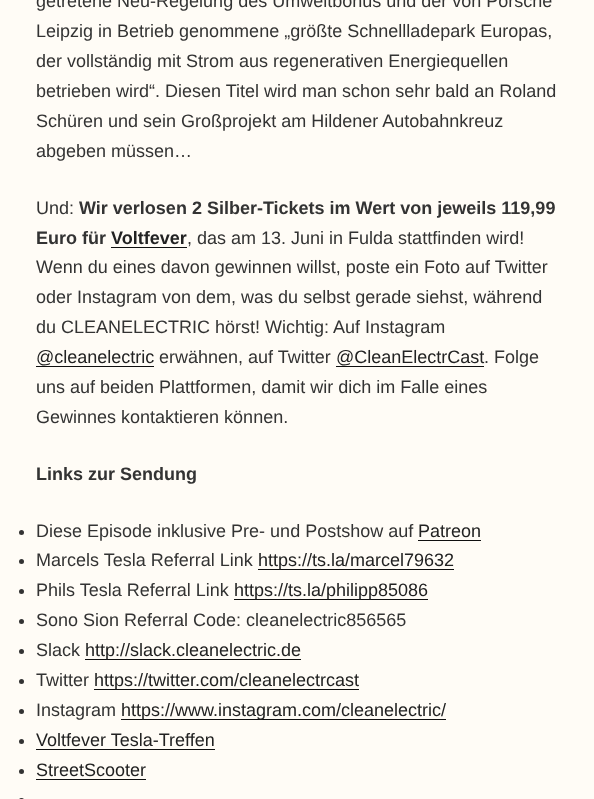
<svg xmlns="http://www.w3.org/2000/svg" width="594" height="799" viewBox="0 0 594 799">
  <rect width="100%" height="100%" fill="#fffcf6"/>
  <path d="M111 247h76v1H111z" fill="#0f0f0f"/>
  <path d="M36 366h118v1H36z" fill="#0f0f0f"/>
  <path d="M336 366h148v1H336z" fill="#0f0f0f"/>
  <circle cx="21.5" cy="532.5" r="2.5" fill="#333"/>
  <path d="M418 540h63v1H418z" fill="#0f0f0f"/>
  <circle cx="21.5" cy="561.5" r="2.5" fill="#333"/>
  <path d="M258 569h196v1H258z" fill="#0f0f0f"/>
  <circle cx="21.5" cy="591.5" r="2.5" fill="#333"/>
  <path d="M234 599h194v1H234z" fill="#0f0f0f"/>
  <circle cx="21.5" cy="621.5" r="2.5" fill="#333"/>
  <circle cx="21.5" cy="651.5" r="2.5" fill="#333"/>
  <path d="M85 659h216v1H85z" fill="#0f0f0f"/>
  <circle cx="21.5" cy="681.5" r="2.5" fill="#333"/>
  <path d="M94 689h265v1H94z" fill="#0f0f0f"/>
  <circle cx="21.5" cy="711.5" r="2.5" fill="#333"/>
  <path d="M121 719h325v1H121z" fill="#0f0f0f"/>
  <circle cx="21.5" cy="741.5" r="2.5" fill="#333"/>
  <path d="M36 749h179v1H36z" fill="#0f0f0f"/>
  <circle cx="21.5" cy="771.5" r="2.5" fill="#333"/>
  <path d="M36 779h110v1H36z" fill="#0f0f0f"/>
  <rect x="19" y="798" width="5" height="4" rx="2.5" fill="#333"/>
  <g font-family="Liberation Sans" font-size="18" fill="#333">
    <text x="36" y="7">getretene Neu-Regelung des Umweltbonus und der von Porsche</text>
    <text x="36" y="37">Leipzig in Betrieb genommene „größte Schnellladepark Europas,</text>
    <text x="36" y="67">der vollständig mit Strom aus regenerativen Energiequellen</text>
    <text x="36" y="97">betrieben wird“. Diesen Titel wird man schon sehr bald an Roland</text>
    <text x="36" y="127">Schüren und sein Großprojekt am Hildener Autobahnkreuz</text>
    <text x="36" y="157">abgeben müssen…</text>
    <text x="36" y="214">Und:</text>
  </g>
  <g font-family="Liberation Sans" font-size="18" font-weight="bold" fill="#333">
    <text x="79" y="214">Wir verlosen 2 Silber-Tickets im Wert von jeweils 119,99</text>
    <text x="36" y="244">Euro für</text>
  </g>
  <text x="111" y="244" font-family="Liberation Sans" font-size="18" font-weight="bold" fill="#222">Voltfever</text>
  <g font-family="Liberation Sans" font-size="18" fill="#333">
    <text x="187" y="244">, das am 13. Juni in Fulda stattfinden wird!</text>
    <text x="36" y="273">Wenn du eines davon gewinnen willst, poste ein Foto auf Twitter</text>
    <text x="36" y="303">oder Instagram von dem, was du selbst gerade siehst, während</text>
    <text x="36" y="333">du CLEANELECTRIC hörst! Wichtig: Auf Instagram</text>
  </g>
  <text x="36" y="363" font-family="Liberation Sans" font-size="18" fill="#222">@cleanelectric</text>
  <text x="159" y="363" font-family="Liberation Sans" font-size="18" fill="#333">erwähnen, auf Twitter</text>
  <text x="336" y="363" font-family="Liberation Sans" font-size="18" fill="#222">@CleanElectrCast</text>
  <g font-family="Liberation Sans" font-size="18" fill="#333">
    <text x="484" y="363">. Folge</text>
    <text x="36" y="393">uns auf beiden Plattformen, damit wir dich im Falle eines</text>
    <text x="36" y="423">Gewinnes kontaktieren können.</text>
  </g>
  <text x="36" y="480" font-family="Liberation Sans" font-size="18" font-weight="bold" fill="#333">Links zur Sendung</text>
  <text x="36" y="537" font-family="Liberation Sans" font-size="18" fill="#333">Diese Episode inklusive Pre- und Postshow auf</text>
  <text x="418" y="537" font-family="Liberation Sans" font-size="18" fill="#222">Patreon</text>
  <text x="36" y="566" font-family="Liberation Sans" font-size="18" fill="#333">Marcels Tesla Referral Link</text>
  <text x="258" y="566" font-family="Liberation Sans" font-size="18" fill="#222">https://ts.la/marcel79632</text>
  <text x="36" y="596" font-family="Liberation Sans" font-size="18" fill="#333">Phils Tesla Referral Link</text>
  <text x="234" y="596" font-family="Liberation Sans" font-size="18" fill="#222">https://ts.la/philipp85086</text>
  <g font-family="Liberation Sans" font-size="18" fill="#333">
    <text x="36" y="626">Sono Sion Referral Code: cleanelectric856565</text>
    <text x="36" y="656">Slack</text>
  </g>
  <text x="85" y="656" font-family="Liberation Sans" font-size="18" fill="#222">http://slack.cleanelectric.de</text>
  <text x="36" y="686" font-family="Liberation Sans" font-size="18" fill="#333">Twitter</text>
  <text x="94" y="686" font-family="Liberation Sans" font-size="18" fill="#222">https://twitter.com/cleanelectrcast</text>
  <text x="36" y="716" font-family="Liberation Sans" font-size="18" fill="#333">Instagram</text>
  <g font-family="Liberation Sans" font-size="18" fill="#222">
    <text x="121" y="716">https://www.instagram.com/cleanelectric/</text>
    <text x="36" y="746">Voltfever Tesla-Treffen</text>
    <text x="36" y="776">StreetScooter</text>
  </g>
</svg>
